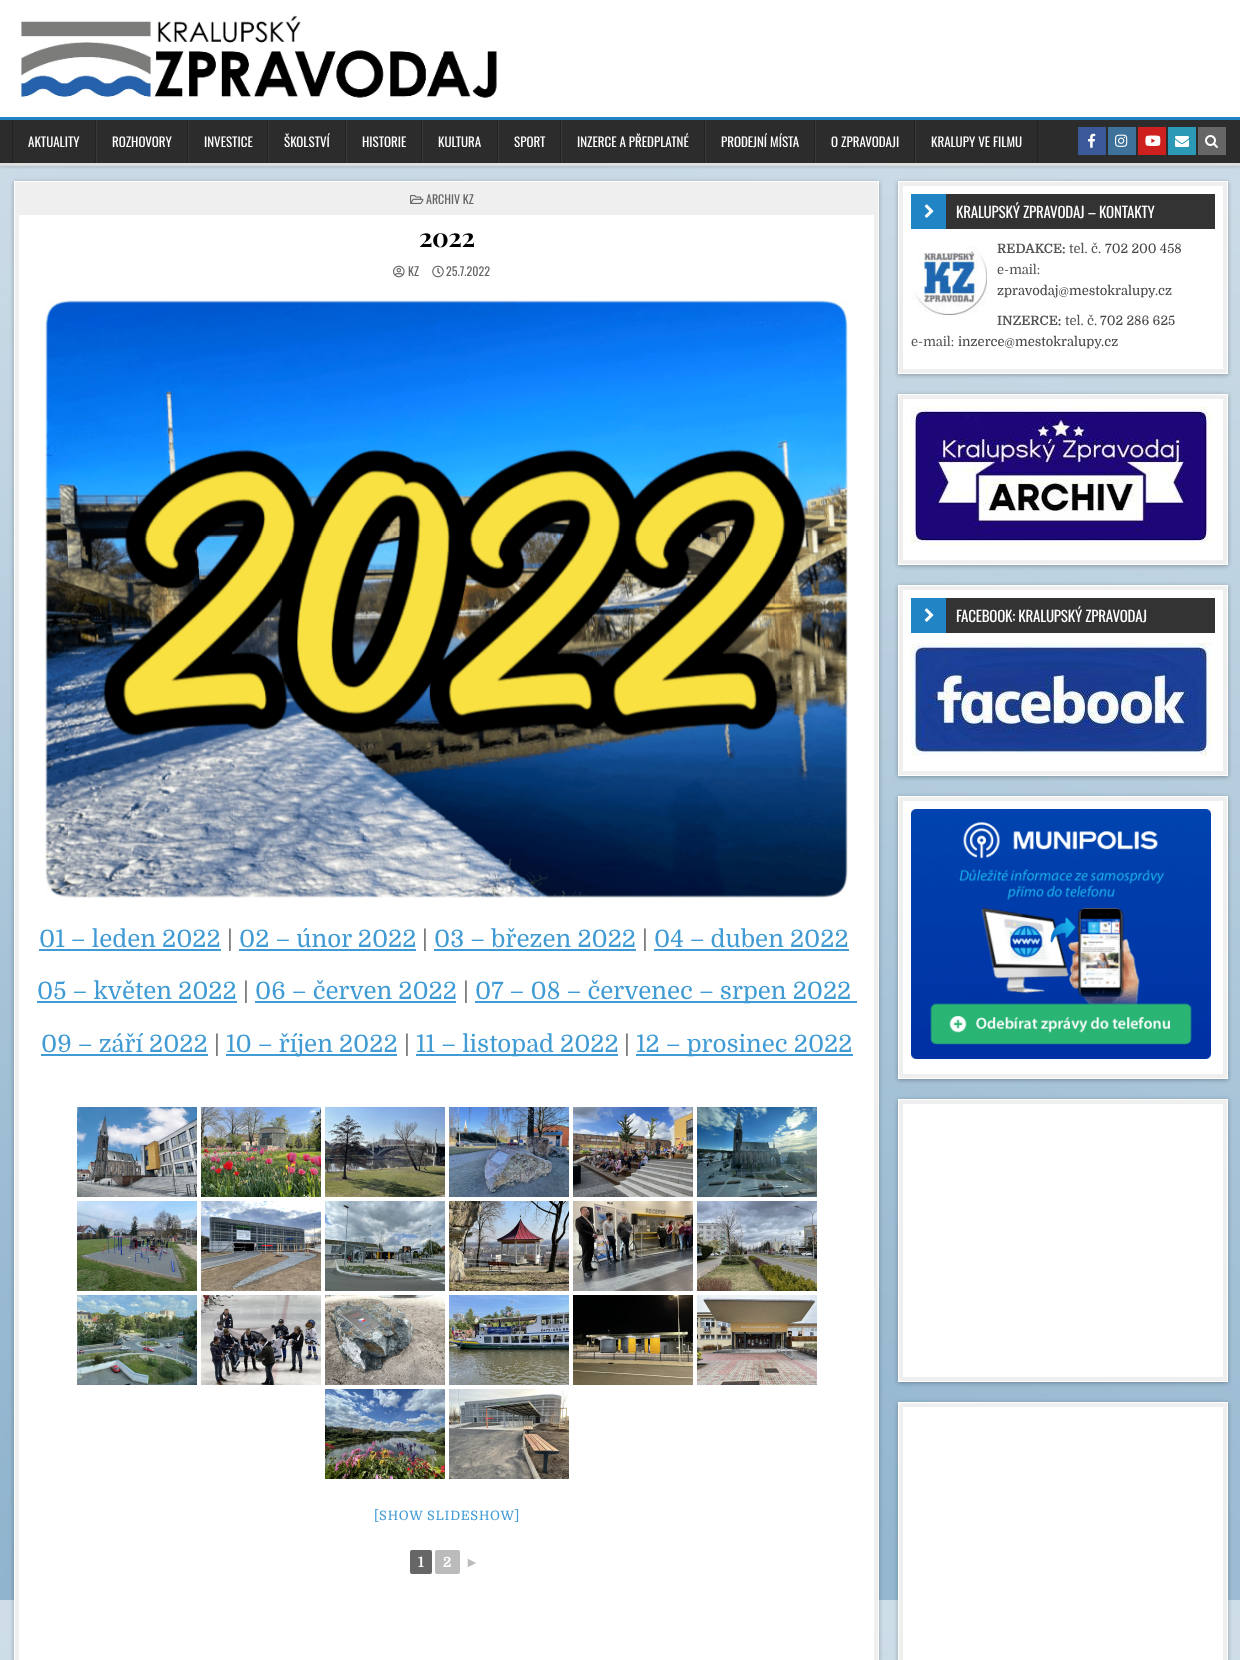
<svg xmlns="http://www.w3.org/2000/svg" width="1240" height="1660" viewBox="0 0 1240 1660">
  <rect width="100%" height="100%" fill="#fff"/>
  <image x="0" y="166" width="1240" height="1494" href="img/1.png"/>
  <path d="M0 118h1240v49H0z" fill="#00000026" filter="blur(1.5px)"/>
  <path d="M0 116h1240v1H0z" fill="#fff"/>
  <image x="19" y="15" width="478" height="84" href="img/2.png"/>
  <path d="M0 120h1240v43H0z" fill="#2c2c2c"/>
  <path d="M0 117h1240v3H0z" fill="#2185c5"/>
  <path d="M0 163h1240v3H0z" fill="#ddd"/>
  <path d="M95 120h1v43H95z" fill="#222"/>
  <path d="M12 120h1v43H12z" fill="#222"/>
  <path d="M187 120h1v43H187z" fill="#222"/>
  <path d="M96 120h1v43H96z" fill="#383838"/>
  <path d="M267 120h1v43H267z" fill="#222"/>
  <path d="M188 120h1v43H188z" fill="#383838"/>
  <path d="M345 120h1v43H345z" fill="#222"/>
  <path d="M268 120h1v43H268z" fill="#383838"/>
  <path d="M421 120h1v43H421z" fill="#222"/>
  <path d="M346 120h1v43H346z" fill="#383838"/>
  <path d="M497 120h1v43H497z" fill="#222"/>
  <path d="M422 120h1v43H422z" fill="#383838"/>
  <path d="M560 120h1v43H560z" fill="#222"/>
  <path d="M498 120h1v43H498z" fill="#383838"/>
  <path d="M704 120h1v43H704z" fill="#222"/>
  <path d="M561 120h1v43H561z" fill="#383838"/>
  <path d="M814 120h1v43H814z" fill="#222"/>
  <path d="M705 120h1v43H705z" fill="#383838"/>
  <path d="M914 120h1v43H914z" fill="#222"/>
  <path d="M815 120h1v43H815z" fill="#383838"/>
  <path d="M1037 120h1v43H1037z" fill="#222"/>
  <path d="M915 120h1v43H915z" fill="#383838"/>
  <path d="M1078 127h28v28H1078z" fill="#3b5998"/>
  <image x="1088" y="133" width="8" height="15" href="img/3.png"/>
  <path d="M1108 127h28v28H1108z" fill="#3f729b"/>
  <image x="1115" y="134" width="13" height="13" href="img/4.png"/>
  <path d="M1138 127h28v28H1138z" fill="#cd201f"/>
  <image x="1145" y="135" width="16" height="11" href="img/5.png"/>
  <path d="M1168 127h28v28H1168z" fill="#2c9ab7"/>
  <image x="1175" y="136" width="14" height="11" href="img/6.png"/>
  <path d="M1198 127h28v28H1198z" fill="#666"/>
  <image x="1205" y="135" width="13" height="13" href="img/7.png"/>
  <path d="M14 182h865v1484H14z" fill="#0000004d" filter="blur(2px)"/>
  <path d="M14 181h865v1479H14z" fill="#fff"/>
  <path d="M17 184h859v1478H17z" fill="none" stroke="#efefef" stroke-width="4"/>
  <path d="M19 186h855v29H19z" fill="#efefef"/>
  <image x="410" y="195" width="14" height="9" href="img/8.png"/>
  <image x="393" y="265" width="12" height="13" href="img/9.png"/>
  <image x="432" y="265" width="12" height="13" href="img/10.png"/>
  <image x="45" y="300" width="803" height="598" href="img/11.png"/>
  <path d="M39 949h182v2H39z" fill="#409bd4"/>
  <path d="M239 949h177v2H239z" fill="#409bd4"/>
  <path d="M434 949h202v2H434z" fill="#409bd4"/>
  <path d="M654 949h195v2H654z" fill="#409bd4"/>
  <path d="M37 1001h200v2H37z" fill="#409bd4"/>
  <path d="M255 1001h201v2H255z" fill="#409bd4"/>
  <path d="M475 1001h382v2H475z" fill="#409bd4"/>
  <path d="M41 1054h167v2H41z" fill="#409bd4"/>
  <path d="M226 1054h171v2H226z" fill="#409bd4"/>
  <path d="M416 1054h202v2H416z" fill="#409bd4"/>
  <path d="M636 1054h217v2H636z" fill="#409bd4"/>
  <image x="77" y="1107" width="120" height="90" href="img/12.png"/>
  <image x="201" y="1107" width="120" height="90" href="img/13.png"/>
  <image x="325" y="1107" width="120" height="90" href="img/14.png"/>
  <image x="449" y="1107" width="120" height="90" href="img/15.png"/>
  <image x="573" y="1107" width="120" height="90" href="img/16.png"/>
  <image x="697" y="1107" width="120" height="90" href="img/17.png"/>
  <image x="77" y="1201" width="120" height="90" href="img/18.png"/>
  <image x="201" y="1201" width="120" height="90" href="img/19.png"/>
  <image x="325" y="1201" width="120" height="90" href="img/20.png"/>
  <image x="449" y="1201" width="120" height="90" href="img/21.png"/>
  <image x="573" y="1201" width="120" height="90" href="img/22.png"/>
  <image x="697" y="1201" width="120" height="90" href="img/23.png"/>
  <image x="77" y="1295" width="120" height="90" href="img/24.png"/>
  <image x="201" y="1295" width="120" height="90" href="img/25.png"/>
  <image x="325" y="1295" width="120" height="90" href="img/26.png"/>
  <image x="449" y="1295" width="120" height="90" href="img/27.png"/>
  <image x="573" y="1295" width="120" height="90" href="img/28.png"/>
  <image x="697" y="1295" width="120" height="90" href="img/29.png"/>
  <image x="325" y="1389" width="120" height="90" href="img/30.png"/>
  <image x="449" y="1389" width="120" height="90" href="img/31.png"/>
  <rect x="410" y="1550" width="22" height="24" rx="2" fill="#666"/>
  <rect x="435" y="1550" width="25" height="24" rx="2" fill="#bbb"/>
  <path d="M898 182h330v193H898z" fill="#0000004d" filter="blur(2px)"/>
  <path d="M898 181h330v193H898z" fill="#fff"/>
  <path d="M901 184h324v187H901z" fill="none" stroke="#efefef" stroke-width="4"/>
  <path d="M946 194h269v35H946z" fill="#333"/>
  <path d="M911 194h35v35H911z" fill="#2185c5"/>
  <image x="924" y="204" width="10" height="14" href="img/32.png"/>
  <image x="911" y="246" width="76" height="69" href="img/33.png"/>
  <path d="M898 395h330v171H898z" fill="#0000004d" filter="blur(2px)"/>
  <path d="M898 394h330v171H898z" fill="#fff"/>
  <path d="M901 397h324v165H901z" fill="none" stroke="#efefef" stroke-width="4"/>
  <image x="911" y="407" width="300" height="138" href="img/34.png"/>
  <path d="M898 586h330v191H898z" fill="#0000004d" filter="blur(2px)"/>
  <path d="M898 585h330v191H898z" fill="#fff"/>
  <path d="M901 588h324v185H901z" fill="none" stroke="#efefef" stroke-width="4"/>
  <path d="M946 598h269v35H946z" fill="#333"/>
  <path d="M911 598h35v35H911z" fill="#2185c5"/>
  <image x="924" y="608" width="10" height="14" href="img/32.png"/>
  <image x="911" y="643" width="300" height="113" href="img/35.png"/>
  <path d="M898 797h330v283H898z" fill="#0000004d" filter="blur(2px)"/>
  <path d="M898 796h330v283H898z" fill="#fff"/>
  <path d="M901 799h324v277H901z" fill="none" stroke="#efefef" stroke-width="4"/>
  <image x="911" y="809" width="300" height="250" href="img/36.png"/>
  <path d="M898 1100h330v283H898z" fill="#0000004d" filter="blur(2px)"/>
  <path d="M898 1099h330v283H898z" fill="#fff"/>
  <path d="M901 1102h324v277H901z" fill="none" stroke="#efefef" stroke-width="4"/>
  <path d="M898 1403h330v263H898z" fill="#0000004d" filter="blur(2px)"/>
  <path d="M898 1402h330v258H898z" fill="#fff"/>
  <path d="M901 1405h324v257H901z" fill="none" stroke="#efefef" stroke-width="4"/>
  <g font-family="Oswald" font-size="13" fill="#fff">
    <text x="28" y="147">AKTUALITY</text>
    <text x="112" y="147">ROZHOVORY</text>
    <text x="204" y="147">INVESTICE</text>
    <text x="284" y="147">ŠKOLSTVÍ</text>
    <text x="362" y="147">HISTORIE</text>
    <text x="438" y="147">KULTURA</text>
    <text x="514" y="147">SPORT</text>
    <text x="577" y="147">INZERCE A PŘEDPLATNÉ</text>
    <text x="721" y="147">PRODEJNÍ MÍSTA</text>
    <text x="831" y="147">O ZPRAVODAJI</text>
    <text x="931" y="147">KRALUPY VE FILMU</text>
  </g>
  <text x="426" y="204" font-family="Oswald" font-size="12" fill="#666">ARCHIV KZ</text>
  <text x="419" y="247" font-family="Playfair Display" font-size="26" font-weight="bold" letter-spacing="-0.5" fill="#000">2022</text>
  <g font-family="Oswald" font-size="12" fill="#666">
    <text x="408" y="276">KZ</text>
    <text x="446" y="276">25.7.2022</text>
  </g>
  <text x="39" y="947" font-family="Domine" font-size="24" fill="#409bd4">01 – leden 2022</text>
  <text x="227" y="947" font-family="Domine" font-size="24" fill="#555">|</text>
  <text x="239" y="947" font-family="Domine" font-size="24" fill="#409bd4">02 – únor 2022</text>
  <text x="422" y="947" font-family="Domine" font-size="24" fill="#555">|</text>
  <text x="434" y="947" font-family="Domine" font-size="24" fill="#409bd4">03 – březen 2022</text>
  <text x="642" y="947" font-family="Domine" font-size="24" fill="#555">|</text>
  <g font-family="Domine" font-size="24" fill="#409bd4">
    <text x="654" y="947">04 – duben 2022</text>
    <text x="37" y="999">05 – květen 2022</text>
  </g>
  <text x="243" y="999" font-family="Domine" font-size="24" fill="#555">|</text>
  <text x="255" y="999" font-family="Domine" font-size="24" fill="#409bd4">06 – červen 2022</text>
  <text x="463" y="999" font-family="Domine" font-size="24" fill="#555">|</text>
  <g font-family="Domine" font-size="24" fill="#409bd4">
    <text x="475" y="999">07 – 08 – červenec – srpen 2022</text>
    <text x="41" y="1052">09 – září 2022</text>
  </g>
  <text x="214" y="1052" font-family="Domine" font-size="24" fill="#555">|</text>
  <text x="226" y="1052" font-family="Domine" font-size="24" fill="#409bd4">10 – říjen 2022</text>
  <text x="404" y="1052" font-family="Domine" font-size="24" fill="#555">|</text>
  <text x="416" y="1052" font-family="Domine" font-size="24" fill="#409bd4">11 – listopad 2022</text>
  <text x="624" y="1052" font-family="Domine" font-size="24" fill="#555">|</text>
  <text x="636" y="1052" font-family="Domine" font-size="24" fill="#409bd4">12 – prosinec 2022</text>
  <text x="374" y="1520" font-family="Domine" font-size="13" letter-spacing="0.75" fill="#409bd4">[SHOW SLIDESHOW]</text>
  <g font-family="Domine" font-size="14" font-weight="bold" fill="#fff">
    <text x="418" y="1567">1</text>
    <text x="443" y="1567">2</text>
  </g>
  <text x="465" y="1567" font-family="Liberation Sans" font-size="14" font-weight="bold" fill="#bbb">►</text>
  <text x="956" y="218" font-family="Oswald" font-size="15" letter-spacing="-0.2" fill="#fff">KRALUPSKÝ ZPRAVODAJ – KONTAKTY</text>
  <text x="997" y="253" font-family="Domine" font-size="13" font-weight="bold" fill="#555">REDAKCE:</text>
  <text x="1069" y="253" font-family="Domine" font-size="13" fill="#555">tel. č.</text>
  <text x="1105" y="253" font-family="Domine" font-size="13" fill="#444">702 200 458</text>
  <text x="997" y="274" font-family="Domine" font-size="13" fill="#555">e-mail:</text>
  <text x="997" y="295" font-family="Domine" font-size="13" fill="#444">zpravodaj@mestokralupy.cz</text>
  <text x="997" y="325" font-family="Domine" font-size="13" font-weight="bold" fill="#555">INZERCE:</text>
  <text x="1065" y="325" font-family="Domine" font-size="13" fill="#555">tel. č.</text>
  <text x="1100" y="325" font-family="Domine" font-size="13" fill="#444">702 286 625</text>
  <text x="911" y="346" font-family="Domine" font-size="13" fill="#555">e-mail:</text>
  <text x="958" y="346" font-family="Domine" font-size="13" fill="#444">inzerce@mestokralupy.cz</text>
  <text x="956" y="622" font-family="Oswald" font-size="15" letter-spacing="-0.2" fill="#fff">FACEBOOK: KRALUPSKÝ ZPRAVODAJ</text>
</svg>
